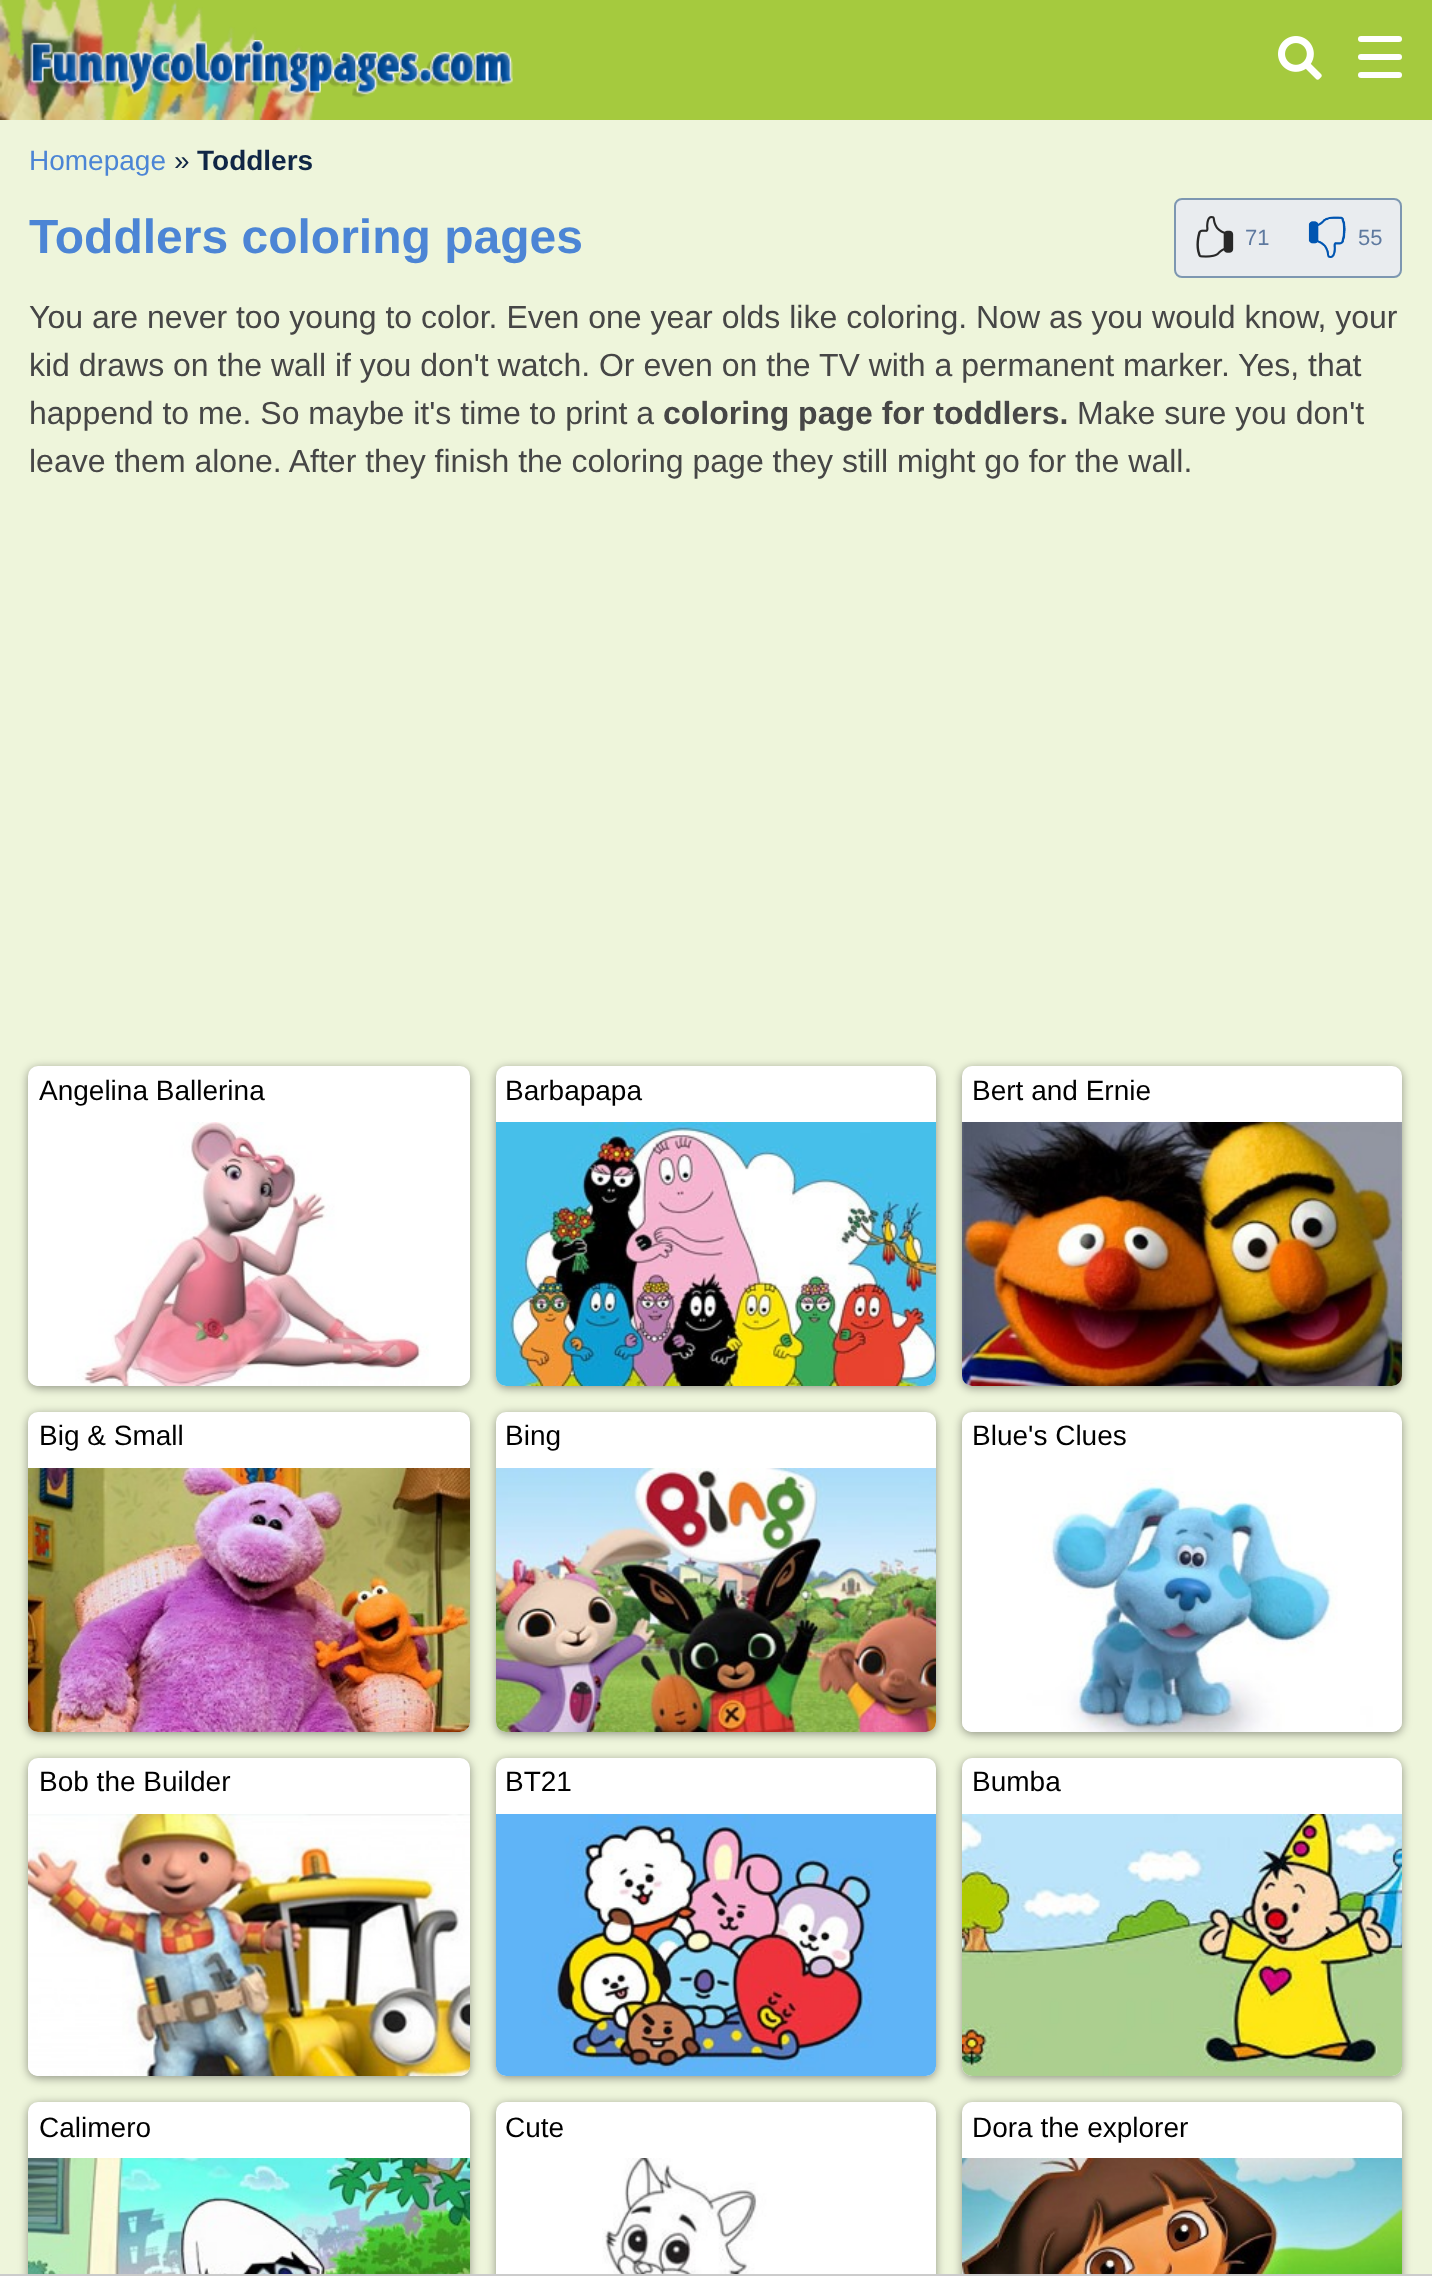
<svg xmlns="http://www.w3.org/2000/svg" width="1432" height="2296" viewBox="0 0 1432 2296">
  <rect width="100%" height="100%" fill="#eef5db"/>
  <path d="M0 0h1432v120H0z" fill="#a5ca3e"/>
  <image x="0" y="0" width="318" height="120" href="img/1.png"/>
  <image x="30" y="40" width="483" height="58" href="img/2.png"/>
  <image x="1278" y="36" width="44" height="44" href="img/3.png"/>
  <rect x="1358" y="36" width="44" height="6" rx="3" fill="#fff"/>
  <rect x="1358" y="54" width="44" height="6" rx="3" fill="#fff"/>
  <rect x="1358" y="72" width="44" height="6" rx="3" fill="#fff"/>
  <rect x="1175" y="199" width="226" height="78" rx="7" fill="#e9ecef" stroke="#7d97b1" stroke-width="2"/>
  <image x="1196" y="216" width="38" height="42" href="img/4.png"/>
  <image x="1308" y="216" width="38" height="42" href="img/5.png"/>
  <rect x="28" y="1068" width="442" height="320" rx="10" fill="#00000066" filter="blur(5px)"/>
  <rect x="28" y="1066" width="442" height="320" rx="10" fill="#fff"/>
  <image x="28" y="1122" width="442" height="264" href="img/6.png"/>
  <rect x="496" y="1068" width="440" height="320" rx="10" fill="#00000066" filter="blur(5px)"/>
  <rect x="496" y="1066" width="440" height="320" rx="10" fill="#fff"/>
  <image x="496" y="1122" width="440" height="264" href="img/7.png"/>
  <rect x="962" y="1068" width="440" height="320" rx="10" fill="#00000066" filter="blur(5px)"/>
  <rect x="962" y="1066" width="440" height="320" rx="10" fill="#fff"/>
  <image x="962" y="1122" width="440" height="264" href="img/8.png"/>
  <rect x="28" y="1414" width="442" height="320" rx="10" fill="#00000066" filter="blur(5px)"/>
  <rect x="28" y="1412" width="442" height="320" rx="10" fill="#fff"/>
  <image x="28" y="1468" width="442" height="264" href="img/9.png"/>
  <rect x="496" y="1414" width="440" height="320" rx="10" fill="#00000066" filter="blur(5px)"/>
  <rect x="496" y="1412" width="440" height="320" rx="10" fill="#fff"/>
  <image x="496" y="1468" width="440" height="264" href="img/10.png"/>
  <rect x="962" y="1414" width="440" height="320" rx="10" fill="#00000066" filter="blur(5px)"/>
  <rect x="962" y="1412" width="440" height="320" rx="10" fill="#fff"/>
  <image x="962" y="1468" width="440" height="264" href="img/11.png"/>
  <rect x="28" y="1760" width="442" height="318" rx="10" fill="#00000066" filter="blur(5px)"/>
  <rect x="28" y="1758" width="442" height="318" rx="10" fill="#fff"/>
  <image x="28" y="1814" width="442" height="262" href="img/12.png"/>
  <rect x="496" y="1760" width="440" height="318" rx="10" fill="#00000066" filter="blur(5px)"/>
  <rect x="496" y="1758" width="440" height="318" rx="10" fill="#fff"/>
  <image x="496" y="1814" width="440" height="262" href="img/13.png"/>
  <rect x="962" y="1760" width="440" height="318" rx="10" fill="#00000066" filter="blur(5px)"/>
  <rect x="962" y="1758" width="440" height="318" rx="10" fill="#fff"/>
  <image x="962" y="1814" width="440" height="262" href="img/14.png"/>
  <rect x="28" y="2104" width="442" height="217" rx="10" fill="#00000066" filter="blur(5px)"/>
  <rect x="28" y="2102" width="442" height="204" rx="10" fill="#fff"/>
  <image x="28" y="2158" width="442" height="116" href="img/15.png"/>
  <rect x="496" y="2104" width="440" height="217" rx="10" fill="#00000066" filter="blur(5px)"/>
  <rect x="496" y="2102" width="440" height="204" rx="10" fill="#fff"/>
  <image x="602" y="2158" width="222" height="116" href="img/16.png"/>
  <rect x="962" y="2104" width="440" height="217" rx="10" fill="#00000066" filter="blur(5px)"/>
  <rect x="962" y="2102" width="440" height="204" rx="10" fill="#fff"/>
  <image x="962" y="2158" width="440" height="116" href="img/17.png"/>
  <path d="M0 2276h1432v20H0z" fill="#fff"/>
  <path d="M0 2274h1432v2H0z" fill="#ccc"/>
  <text x="29" y="170" font-family="Liberation Sans" font-size="28" fill="#4c85d5">Homepage</text>
  <text x="174" y="170" font-family="Liberation Sans" font-size="28" fill="#102645">»</text>
  <text x="197" y="170" font-family="Liberation Sans" font-size="28" font-weight="bold" fill="#102645">Toddlers</text>
  <text x="29" y="253" font-family="Liberation Sans" font-size="48" font-weight="bold" fill="#4c85d5">Toddlers coloring pages</text>
  <g font-family="Liberation Sans" font-size="22" fill="#5e799f">
    <text x="1245" y="245">71</text>
    <text x="1358" y="245">55</text>
  </g>
  <g font-family="Liberation Sans" font-size="32" fill="#464646">
    <text x="29" y="328">You are never too young to color. Even one year olds like coloring. Now as you would know, your</text>
    <text x="29" y="376">kid draws on the wall if you don't watch. Or even on the TV with a permanent marker. Yes, that</text>
    <text x="29" y="424">happend to me. So maybe it's time to print a</text>
  </g>
  <text x="663" y="424" font-family="Liberation Sans" font-size="32" font-weight="bold" fill="#464646">coloring page for toddlers.</text>
  <g font-family="Liberation Sans" font-size="32" fill="#464646">
    <text x="1077" y="424">Make sure you don't</text>
    <text x="29" y="472">leave them alone. After they finish the coloring page they still might go for the wall.</text>
  </g>
  <g font-family="Liberation Sans" font-size="28" fill="#000">
    <text x="39" y="1100">Angelina Ballerina</text>
    <text x="505" y="1100">Barbapapa</text>
    <text x="972" y="1100">Bert and Ernie</text>
    <text x="39" y="1445">Big &amp; Small</text>
    <text x="505" y="1445">Bing</text>
    <text x="972" y="1445">Blue's Clues</text>
    <text x="39" y="1791">Bob the Builder</text>
    <text x="505" y="1791">BT21</text>
    <text x="972" y="1791">Bumba</text>
    <text x="39" y="2137">Calimero</text>
    <text x="505" y="2137">Cute</text>
    <text x="972" y="2137">Dora the explorer</text>
  </g>
</svg>
